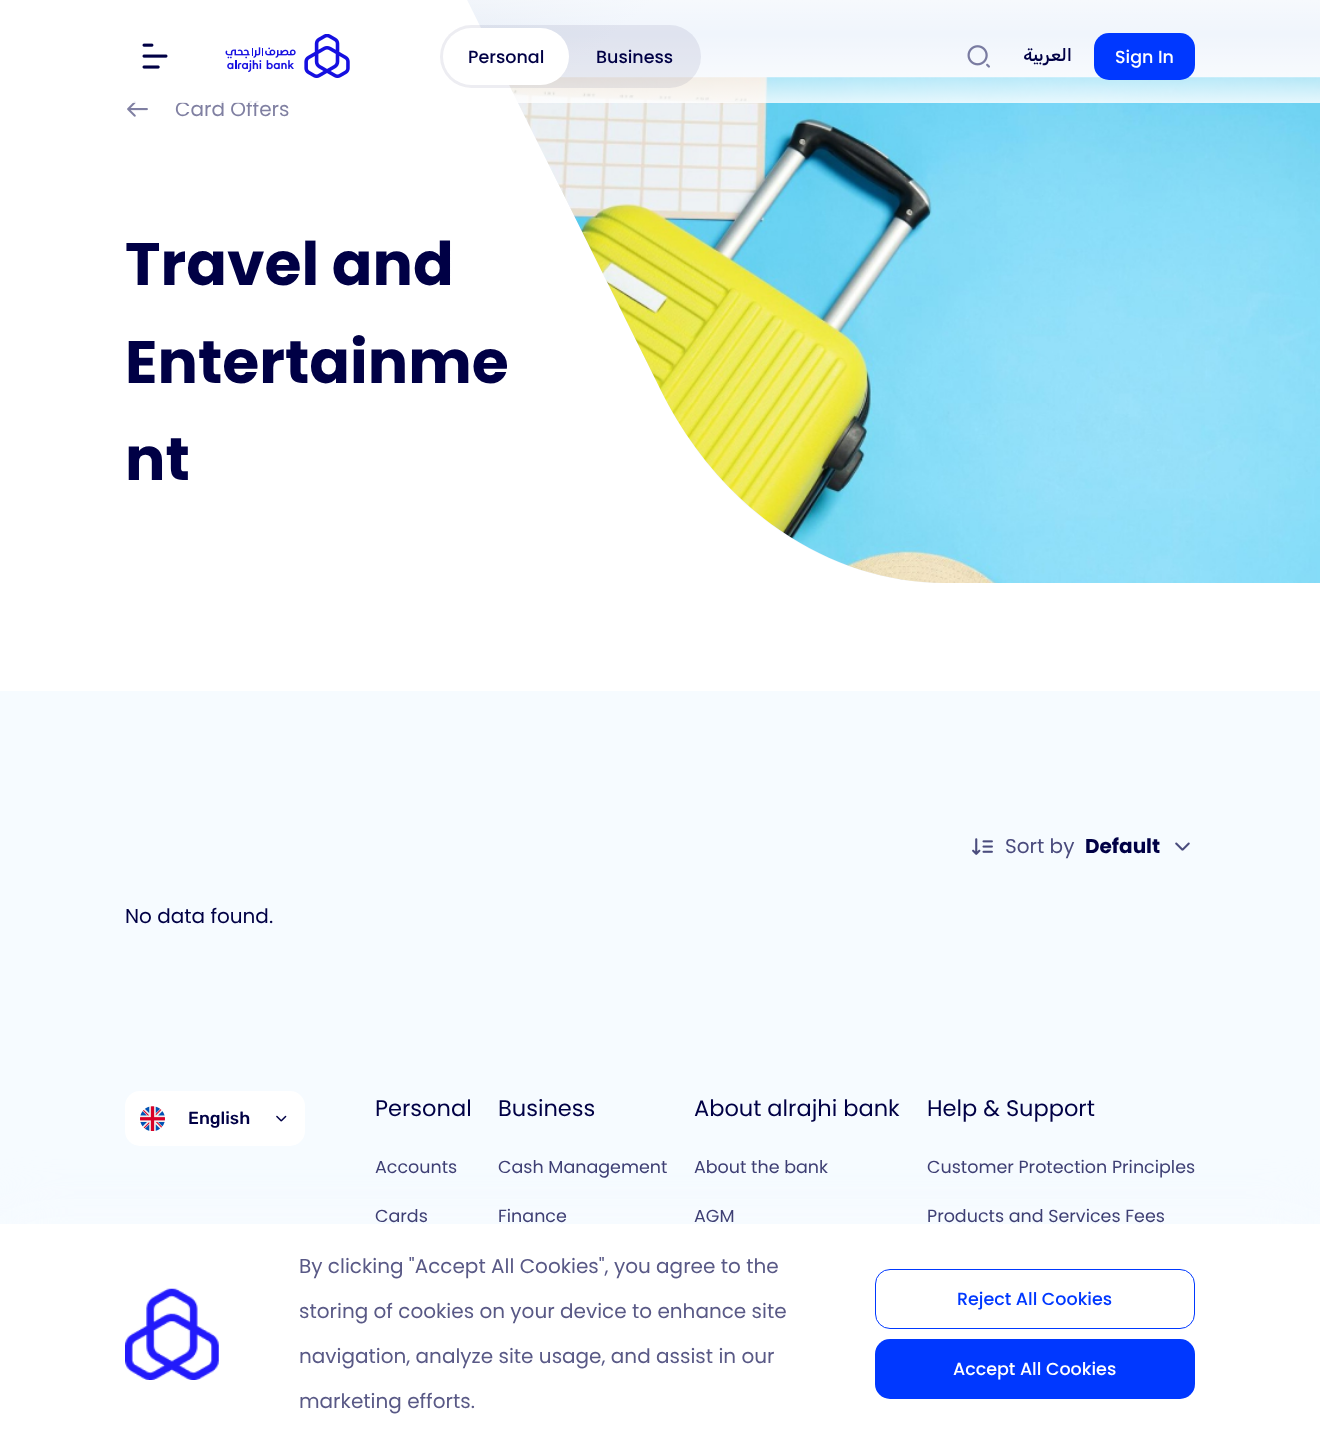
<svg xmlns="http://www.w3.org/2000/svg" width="1320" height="1443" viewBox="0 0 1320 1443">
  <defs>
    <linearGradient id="g1" gradientUnits="userSpaceOnUse" x1="185" y1="-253" x2="1135" y2="816"><stop offset="0" stop-color="#d3dbe9"/><stop offset="0.35" stop-color="#f0f5fc"/></linearGradient>
    <linearGradient id="g2" gradientUnits="userSpaceOnUse" x1="660" y1="-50" x2="660" y2="118"><stop offset="0" stop-color="#fff"/><stop offset="0.5" stop-color="#fff" stop-opacity="0"/><stop offset="1" stop-color="#fff"/></linearGradient>
  </defs>
  <rect width="100%" height="100%" fill="#f6fbff"/>
  <path d="M0 0h1320v691H0z" fill="#fff"/>
  <image x="127" y="101" width="21" height="16" href="img/4.png"/>
  <path d="M660 389C689 448 730 497 780 531C831 565 886 583 944 583H1320V-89H423Z" fill="url(#g1)"/>
  <image x="509" y="77" width="811" height="506" href="img/5.png"/>
  <image x="972" y="838" width="21" height="17" href="img/6.png"/>
  <image x="1175" y="842" width="15" height="9" href="img/7.png"/>
  <rect x="125" y="1091" width="180" height="55" rx="15" fill="#fff"/>
  <image x="140" y="1106" width="25" height="25" href="img/8.png"/>
  <image x="276" y="1115" width="11" height="7" href="img/9.png"/>
  <path d="M0 1224h1320v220H0z" fill="#f7fbff" filter="blur(31px)"/>
  <path d="M0 1224h1320v219H0z" fill="#fff"/>
  <image x="125" y="1288" width="94" height="92" href="img/10.png"/>
  <rect x="875.5" y="1269.5" width="319" height="59" rx="14.5" fill="none" stroke="#0038ff"/>
  <rect x="875" y="1339" width="320" height="60" rx="15" fill="#0038ff"/>
  <text x="175" y="116" font-family="Poppins" font-size="20" fill="#8080a2">Card Offers</text>
  <path d="M132 0h1188v103H132z" fill="url(#g2)"/>
  <image x="225" y="34" width="125" height="44" href="img/2.png"/>
  <rect x="440" y="25" width="261" height="63" rx="31.5" fill="#1c1b5414"/>
  <text x="596" y="63" font-family="Poppins" font-size="17.5" font-weight="500" fill="#000045">Business</text>
  <rect x="443" y="28" width="126" height="57" rx="28.5" fill="#fff"/>
  <text x="468" y="63" font-family="Poppins" font-size="17.5" font-weight="500" fill="#000045">Personal</text>
  <rect x="1094" y="33" width="101" height="47" rx="15" fill="#0038ff"/>
  <text x="1115" y="63" font-family="Poppins" font-size="17.5" font-weight="500" fill="#fff">Sign In</text>
  <text x="1072" y="61" font-family="Rubik" font-size="17.5" font-weight="500" direction="rtl" fill="#000045">العربية</text>
  <image x="967" y="45" width="23" height="23" href="img/3.png"/>
  <image x="142" y="43" width="26" height="26" href="img/1.png"/>
  <g font-family="Poppins" font-size="60" font-weight="bold" fill="#000045">
    <text x="125" y="285">Travel and</text>
    <text x="125" y="383">Entertainme</text>
    <text x="125" y="480">nt</text>
  </g>
  <text x="1005" y="853" font-family="Poppins" font-size="20" fill="#4a4b7d">Sort by</text>
  <text x="1085" y="853" font-family="Poppins" font-size="20" font-weight="bold" fill="#000045">Default</text>
  <text x="125" y="923" font-family="Poppins" font-size="20" fill="#000045">No data found.</text>
  <text x="188" y="1124" font-family="Rubik" font-size="17.5" font-weight="500" fill="#000045">English</text>
  <text x="375" y="1116" font-family="Poppins" font-size="22.5" fill="#000045">Personal</text>
  <g font-family="Poppins" font-size="17.5" fill="#3e3f74">
    <text x="375" y="1173">Accounts</text>
    <text x="375" y="1222">Cards</text>
  </g>
  <text x="498" y="1116" font-family="Poppins" font-size="22.5" fill="#000045">Business</text>
  <g font-family="Poppins" font-size="17.5" fill="#3e3f74">
    <text x="498" y="1173">Cash Management</text>
    <text x="498" y="1222">Finance</text>
  </g>
  <text x="694" y="1116" font-family="Poppins" font-size="22.5" fill="#000045">About alrajhi bank</text>
  <g font-family="Poppins" font-size="17.5" fill="#3e3f74">
    <text x="694" y="1173">About the bank</text>
    <text x="694" y="1222">AGM</text>
  </g>
  <text x="927" y="1116" font-family="Poppins" font-size="22.5" fill="#000045">Help &amp; Support</text>
  <g font-family="Poppins" font-size="17.5" fill="#3e3f74">
    <text x="927" y="1173">Customer Protection Principles</text>
    <text x="927" y="1222">Products and Services Fees</text>
  </g>
  <g font-family="Poppins" font-size="20" fill="#595986">
    <text x="299" y="1273">By clicking "Accept All Cookies", you agree to the</text>
    <text x="299" y="1318">storing of cookies on your device to enhance site</text>
    <text x="299" y="1363">navigation, analyze site usage, and assist in our</text>
    <text x="299" y="1408">marketing efforts.</text>
  </g>
  <text x="957" y="1305" font-family="Poppins" font-size="17.5" font-weight="500" fill="#0038ff">Reject All Cookies</text>
  <text x="953" y="1375" font-family="Poppins" font-size="17.5" font-weight="500" fill="#fff">Accept All Cookies</text>
</svg>
